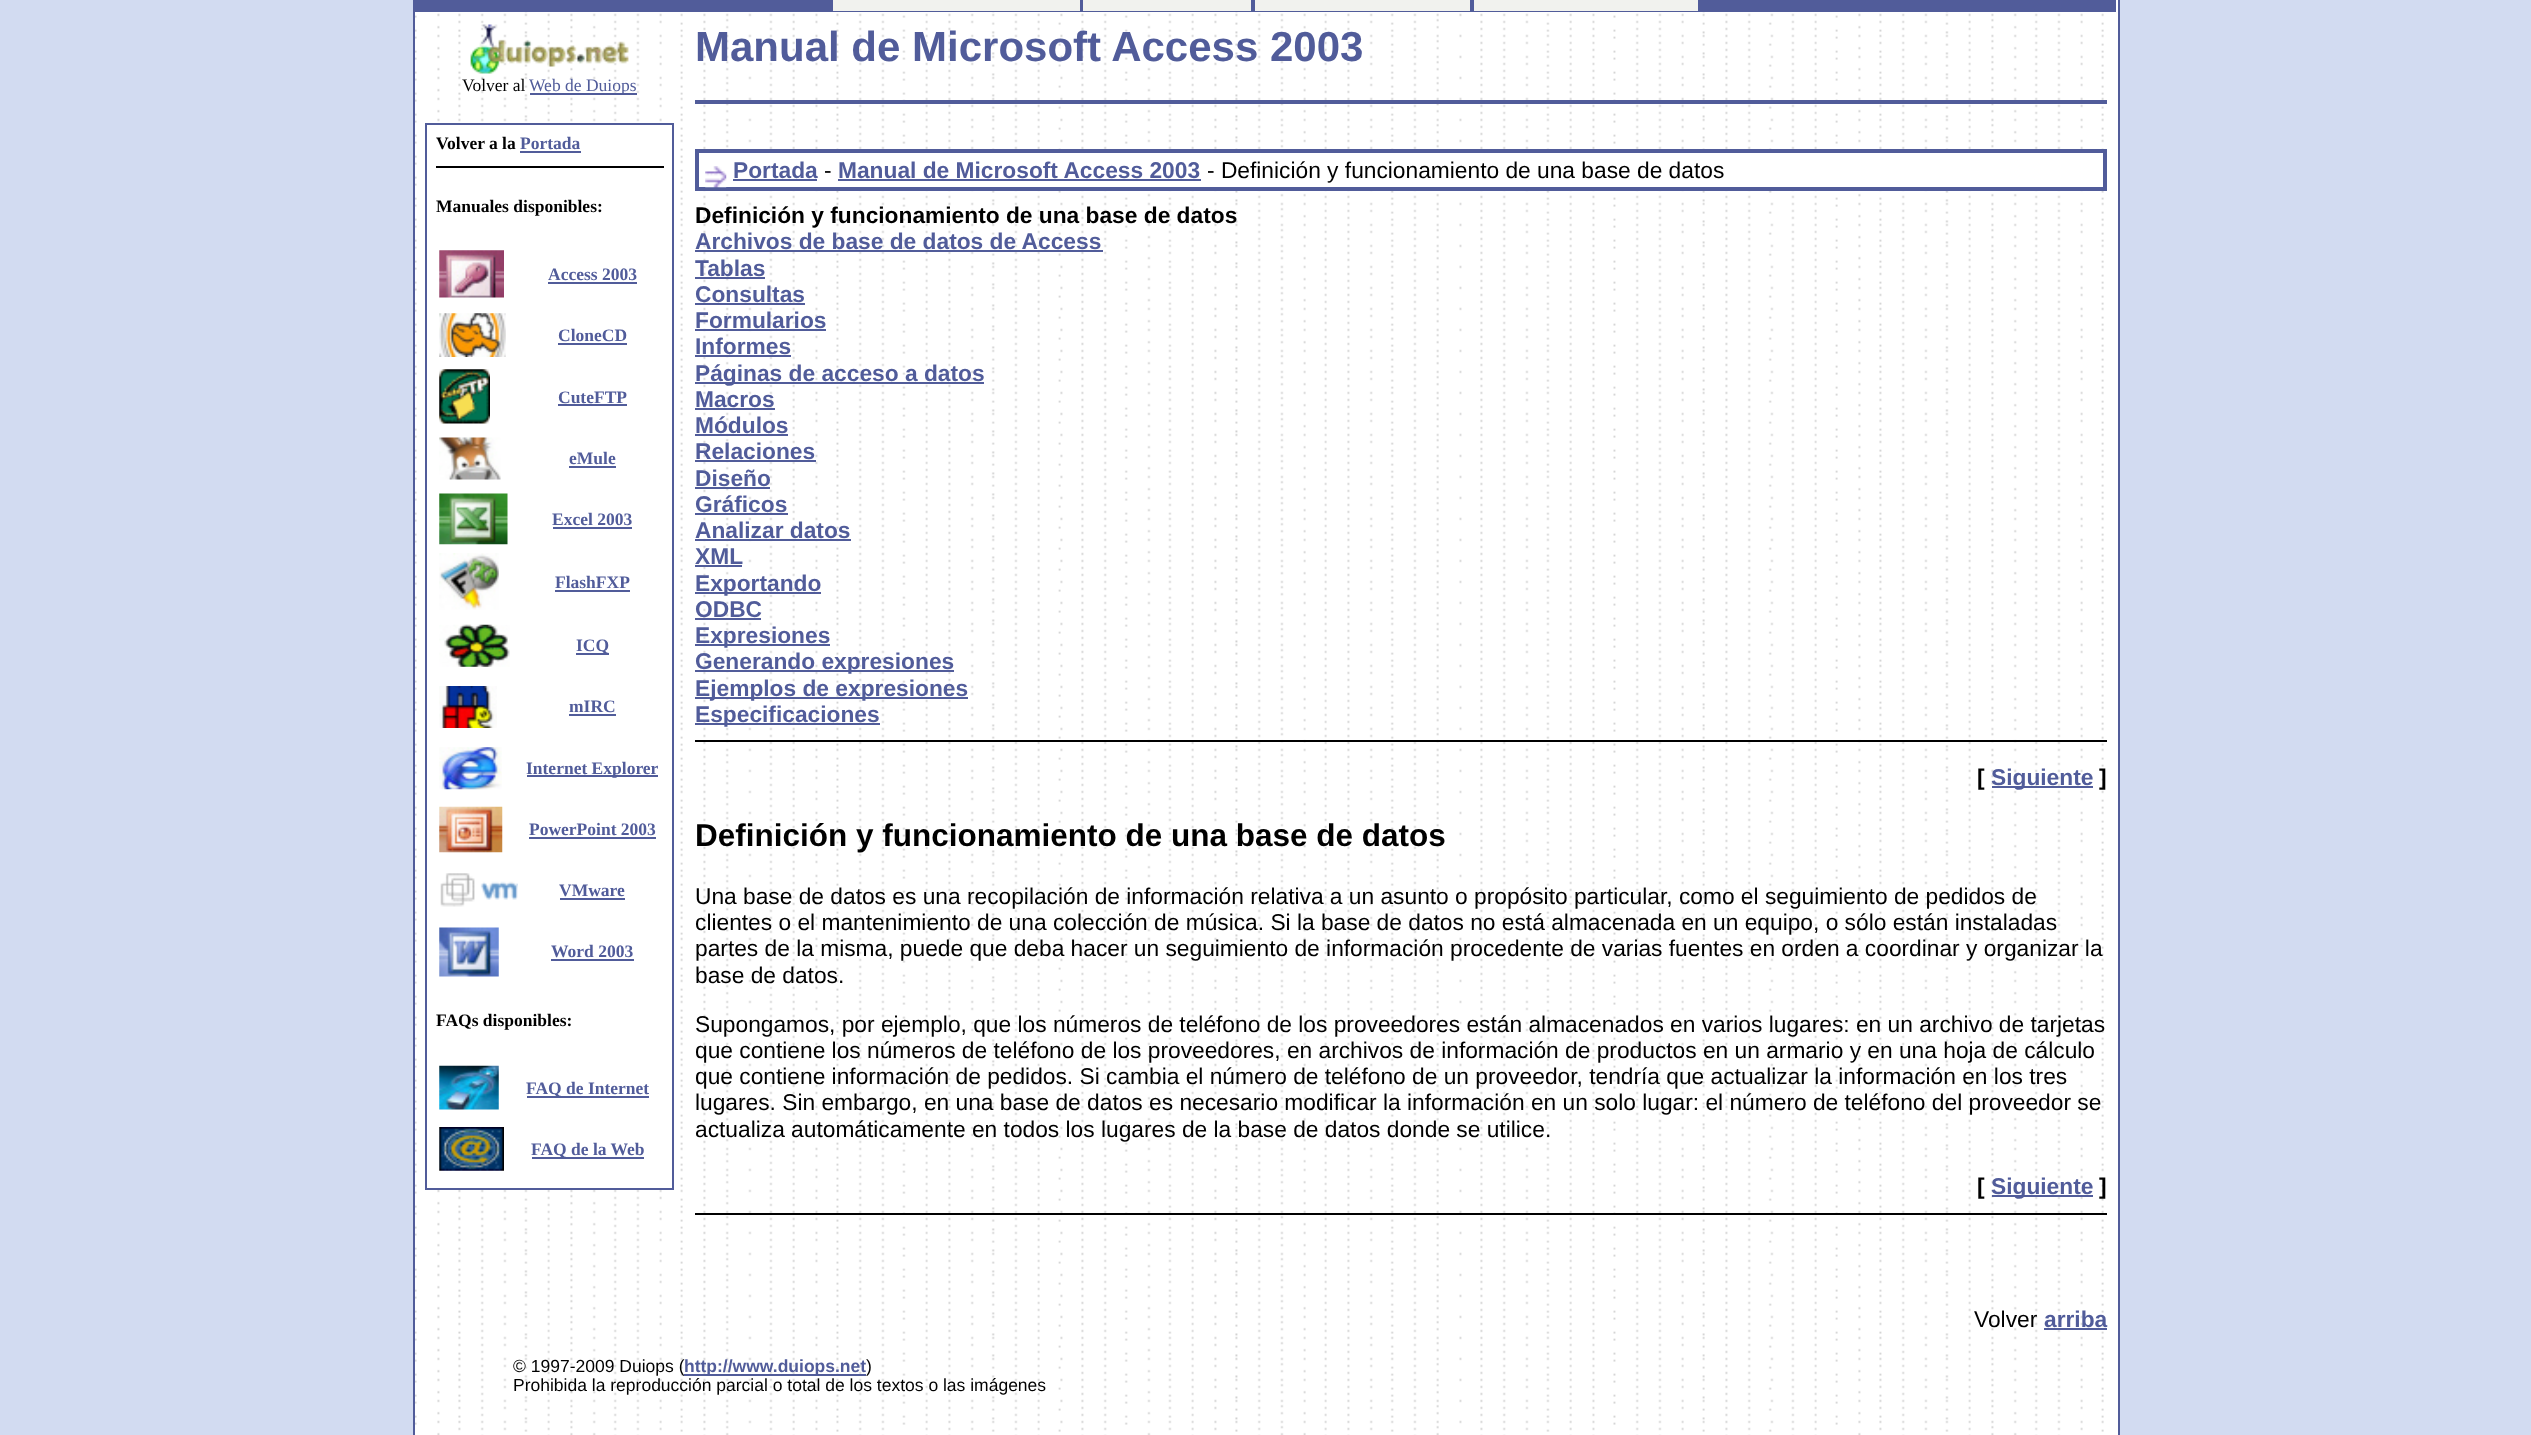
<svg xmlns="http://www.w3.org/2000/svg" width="2531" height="1435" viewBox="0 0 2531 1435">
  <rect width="100%" height="100%" fill="#d2dbf1"/>
  <image x="2116" y="0" width="2" height="12" href="img/1.png"/>
  <path d="M2118 0h2v1435H2118z" fill="#515c9a"/>
  <path d="M413 0h2v1435H413z" fill="#515c9a"/>
  <path d="M415 0h1701v12H415z" fill="#515c9a"/>
  <path d="M833 0h247v11H833z" fill="#f1f2ee"/>
  <path d="M1083 0h168v11H1083z" fill="#f1f2ee"/>
  <path d="M1255 0h215v11H1255z" fill="#f1f2ee"/>
  <path d="M1474 0h224v11H1474z" fill="#f1f2ee"/>
  <path d="M415 12h1703v1423H415z" fill="#fff"/>
  <image x="415" y="12" width="1689" height="1423" href="img/2.png"/>
  <image x="470" y="24" width="159" height="50" href="img/3.png"/>
  <path d="M530 93h107v2H530z" fill="#515c9a"/>
  <path d="M437 125h225v1063H437z" fill="#fff"/>
  <path d="M425 123h249v2H425z" fill="#515c9a"/>
  <path d="M672 123h2v1067H672z" fill="#515c9a"/>
  <path d="M425 1188h249v2H425z" fill="#515c9a"/>
  <path d="M425 123h2v1067H425z" fill="#515c9a"/>
  <path d="M520 151h61v2H520z" fill="#515c9a"/>
  <path d="M436 166h228v2H436z" fill="#000"/>
  <image x="439" y="250" width="65" height="48" href="img/4.png"/>
  <path d="M548 282h89v2H548z" fill="#515c9a"/>
  <image x="439" y="313" width="67" height="44" href="img/5.png"/>
  <path d="M558 343h69v2H558z" fill="#515c9a"/>
  <image x="439" y="369" width="51" height="55" href="img/6.png"/>
  <path d="M558 404h69v2H558z" fill="#515c9a"/>
  <image x="439" y="437" width="62" height="43" href="img/7.png"/>
  <path d="M569 466h47v2H569z" fill="#515c9a"/>
  <image x="439" y="493" width="69" height="52" href="img/8.png"/>
  <path d="M553 527h79v2H553z" fill="#515c9a"/>
  <image x="439" y="553" width="60" height="57" href="img/9.png"/>
  <path d="M555 590h75v2H555z" fill="#515c9a"/>
  <image x="439" y="624" width="71" height="43" href="img/10.png"/>
  <path d="M576 653h33v2H576z" fill="#515c9a"/>
  <image x="439" y="686" width="58" height="42" href="img/11.png"/>
  <path d="M569 714h47v2H569z" fill="#515c9a"/>
  <image x="439" y="747" width="63" height="43" href="img/12.png"/>
  <path d="M527 775h131v2H527z" fill="#515c9a"/>
  <image x="439" y="806" width="64" height="47" href="img/13.png"/>
  <path d="M529 837h127v2H529z" fill="#515c9a"/>
  <image x="440" y="873" width="78" height="34" href="img/14.png"/>
  <path d="M560 898h65v2H560z" fill="#515c9a"/>
  <image x="439" y="927" width="60" height="50" href="img/15.png"/>
  <path d="M551 959h83v2H551z" fill="#515c9a"/>
  <image x="439" y="1065" width="60" height="45" href="img/16.png"/>
  <path d="M527 1096h122v2H527z" fill="#515c9a"/>
  <image x="439" y="1127" width="65" height="44" href="img/17.png"/>
  <path d="M532 1157h112v2H532z" fill="#515c9a"/>
  <path d="M695 100h1412v4H695z" fill="#515c9a"/>
  <path d="M703 153h1400v34H703z" fill="#fff"/>
  <path d="M696 150h1410v40H696z" fill="none" stroke="#515c9a" stroke-width="2"/>
  <path d="M698 152h1406v36H698z" fill="none" stroke="#515c9a" stroke-width="2"/>
  <image x="705" y="166" width="22" height="22" href="img/18.png"/>
  <path d="M733 179h84v2H733z" fill="#515c9a"/>
  <path d="M838 179h363v2H838z" fill="#515c9a"/>
  <path d="M695 250h408v2H695z" fill="#515c9a"/>
  <path d="M695 277h70v2H695z" fill="#515c9a"/>
  <path d="M695 303h110v2H695z" fill="#515c9a"/>
  <path d="M695 329h131v2H695z" fill="#515c9a"/>
  <path d="M695 355h96v2H695z" fill="#515c9a"/>
  <path d="M695 382h289v2H695z" fill="#515c9a"/>
  <path d="M695 408h80v2H695z" fill="#515c9a"/>
  <path d="M695 434h93v2H695z" fill="#515c9a"/>
  <path d="M695 460h121v2H695z" fill="#515c9a"/>
  <path d="M695 487h75v2H695z" fill="#515c9a"/>
  <path d="M695 513h93v2H695z" fill="#515c9a"/>
  <path d="M695 539h156v2H695z" fill="#515c9a"/>
  <path d="M695 565h47v2H695z" fill="#515c9a"/>
  <path d="M695 592h126v2H695z" fill="#515c9a"/>
  <path d="M695 618h66v2H695z" fill="#515c9a"/>
  <path d="M695 644h135v2H695z" fill="#515c9a"/>
  <path d="M695 670h259v2H695z" fill="#515c9a"/>
  <path d="M695 697h273v2H695z" fill="#515c9a"/>
  <path d="M695 723h185v2H695z" fill="#515c9a"/>
  <path d="M695 740h1412v2H695z" fill="#000"/>
  <path d="M1992 786h101v2H1992z" fill="#515c9a"/>
  <path d="M1992 1195h101v2H1992z" fill="#515c9a"/>
  <path d="M695 1213h1412v2H695z" fill="#000"/>
  <path d="M2044 1328h63v2H2044z" fill="#515c9a"/>
  <text x="462" y="91" font-family="Liberation Serif" font-size="17.5" fill="#000">Volver al</text>
  <text x="529" y="91" font-family="Liberation Serif" font-size="17.5" fill="#515c9a">Web de Duiops</text>
  <text x="436" y="149" font-family="Liberation Serif" font-size="17.5" font-weight="bold" fill="#000">Volver a la</text>
  <text x="520" y="149" font-family="Liberation Serif" font-size="17.5" font-weight="bold" fill="#515c9a">Portada</text>
  <text x="436" y="212" font-family="Liberation Serif" font-size="17.5" font-weight="bold" fill="#000">Manuales disponibles:</text>
  <g font-family="Liberation Serif" font-size="17.5" font-weight="bold" fill="#515c9a">
    <text x="548" y="280">Access 2003</text>
    <text x="558" y="341">CloneCD</text>
    <text x="558" y="403">CuteFTP</text>
    <text x="569" y="464">eMule</text>
    <text x="552" y="525">Excel 2003</text>
    <text x="555" y="588">FlashFXP</text>
    <text x="576" y="651">ICQ</text>
    <text x="569" y="712">mIRC</text>
    <text x="526" y="774">Internet Explorer</text>
    <text x="529" y="835">PowerPoint 2003</text>
    <text x="559" y="896">VMware</text>
    <text x="551" y="957">Word 2003</text>
  </g>
  <text x="436" y="1026" font-family="Liberation Serif" font-size="17.5" font-weight="bold" fill="#000">FAQs disponibles:</text>
  <g font-family="Liberation Serif" font-size="17.5" font-weight="bold" fill="#515c9a">
    <text x="526" y="1094">FAQ de Internet</text>
    <text x="531" y="1155">FAQ de la Web</text>
  </g>
  <text x="695" y="61" font-family="Liberation Sans" font-size="42" font-weight="bold" fill="#515c9a">Manual de Microsoft Access 2003</text>
  <text x="733" y="178" font-family="Liberation Sans" font-size="22.75" font-weight="bold" fill="#515c9a">Portada</text>
  <text x="824" y="178" font-family="Liberation Sans" font-size="22.75" fill="#000">-</text>
  <text x="838" y="178" font-family="Liberation Sans" font-size="22.75" font-weight="bold" fill="#515c9a">Manual de Microsoft Access 2003</text>
  <text x="1207" y="178" font-family="Liberation Sans" font-size="22.75" fill="#000">- Definición y funcionamiento de una base de datos</text>
  <text x="695" y="223" font-family="Liberation Sans" font-size="22.75" font-weight="bold" fill="#000">Definición y funcionamiento de una base de datos</text>
  <g font-family="Liberation Sans" font-size="22.75" font-weight="bold" fill="#515c9a">
    <text x="695" y="249">Archivos de base de datos de Access</text>
    <text x="695" y="276">Tablas</text>
    <text x="695" y="302">Consultas</text>
    <text x="695" y="328">Formularios</text>
    <text x="695" y="354">Informes</text>
    <text x="695" y="381">Páginas de acceso a datos</text>
    <text x="695" y="407">Macros</text>
    <text x="695" y="433">Módulos</text>
    <text x="695" y="459">Relaciones</text>
    <text x="695" y="486">Diseño</text>
    <text x="695" y="512">Gráficos</text>
    <text x="695" y="538">Analizar datos</text>
    <text x="695" y="564">XML</text>
    <text x="695" y="591">Exportando</text>
    <text x="695" y="617">ODBC</text>
    <text x="695" y="643">Expresiones</text>
    <text x="695" y="669">Generando expresiones</text>
    <text x="695" y="696">Ejemplos de expresiones</text>
    <text x="695" y="722">Especificaciones</text>
  </g>
  <text x="1977" y="785" font-family="Liberation Sans" font-size="22.75" font-weight="bold" fill="#000">[</text>
  <text x="1991" y="785" font-family="Liberation Sans" font-size="22.75" font-weight="bold" fill="#515c9a">Siguiente</text>
  <text x="2099" y="785" font-family="Liberation Sans" font-size="22.75" font-weight="bold" fill="#000">]</text>
  <text x="695" y="846" font-family="Liberation Sans" font-size="31.5" font-weight="bold" fill="#000">Definición y funcionamiento de una base de datos</text>
  <g font-family="Liberation Sans" font-size="22.75" fill="#000">
    <text x="695" y="904">Una base de datos es una recopilación de información relativa a un asunto o propósito particular, como el seguimiento de pedidos de</text>
    <text x="695" y="930">clientes o el mantenimiento de una colección de música. Si la base de datos no está almacenada en un equipo, o sólo están instaladas</text>
    <text x="695" y="956">partes de la misma, puede que deba hacer un seguimiento de información procedente de varias fuentes en orden a coordinar y organizar la</text>
    <text x="695" y="983">base de datos.</text>
    <text x="695" y="1032">Supongamos, por ejemplo, que los números de teléfono de los proveedores están almacenados en varios lugares: en un archivo de tarjetas</text>
    <text x="695" y="1058">que contiene los números de teléfono de los proveedores, en archivos de información de productos en un armario y en una hoja de cálculo</text>
    <text x="695" y="1084">que contiene información de pedidos. Si cambia el número de teléfono de un proveedor, tendría que actualizar la información en los tres</text>
    <text x="695" y="1110">lugares. Sin embargo, en una base de datos es necesario modificar la información en un solo lugar: el número de teléfono del proveedor se</text>
    <text x="695" y="1137">actualiza automáticamente en todos los lugares de la base de datos donde se utilice.</text>
  </g>
  <text x="1977" y="1194" font-family="Liberation Sans" font-size="22.75" font-weight="bold" fill="#000">[</text>
  <text x="1991" y="1194" font-family="Liberation Sans" font-size="22.75" font-weight="bold" fill="#515c9a">Siguiente</text>
  <text x="2099" y="1194" font-family="Liberation Sans" font-size="22.75" font-weight="bold" fill="#000">]</text>
  <text x="1974" y="1327" font-family="Liberation Sans" font-size="22.75" fill="#000">Volver</text>
  <text x="2044" y="1327" font-family="Liberation Sans" font-size="22.75" font-weight="bold" fill="#515c9a">arriba</text>
  <text x="513" y="1372" font-family="Liberation Sans" font-size="17.5" fill="#000">© 1997-2009 Duiops (</text>
  <path d="M684 1374h182v2H684z" fill="#515c9a"/>
  <text x="684" y="1372" font-family="Liberation Sans" font-size="17.5" font-weight="bold" fill="#515c9a">http://www.duiops.net</text>
  <g font-family="Liberation Sans" font-size="17.5" fill="#000">
    <text x="866" y="1372">)</text>
    <text x="513" y="1391">Prohibida la reproducción parcial o total de los textos o las imágenes</text>
  </g>
</svg>
